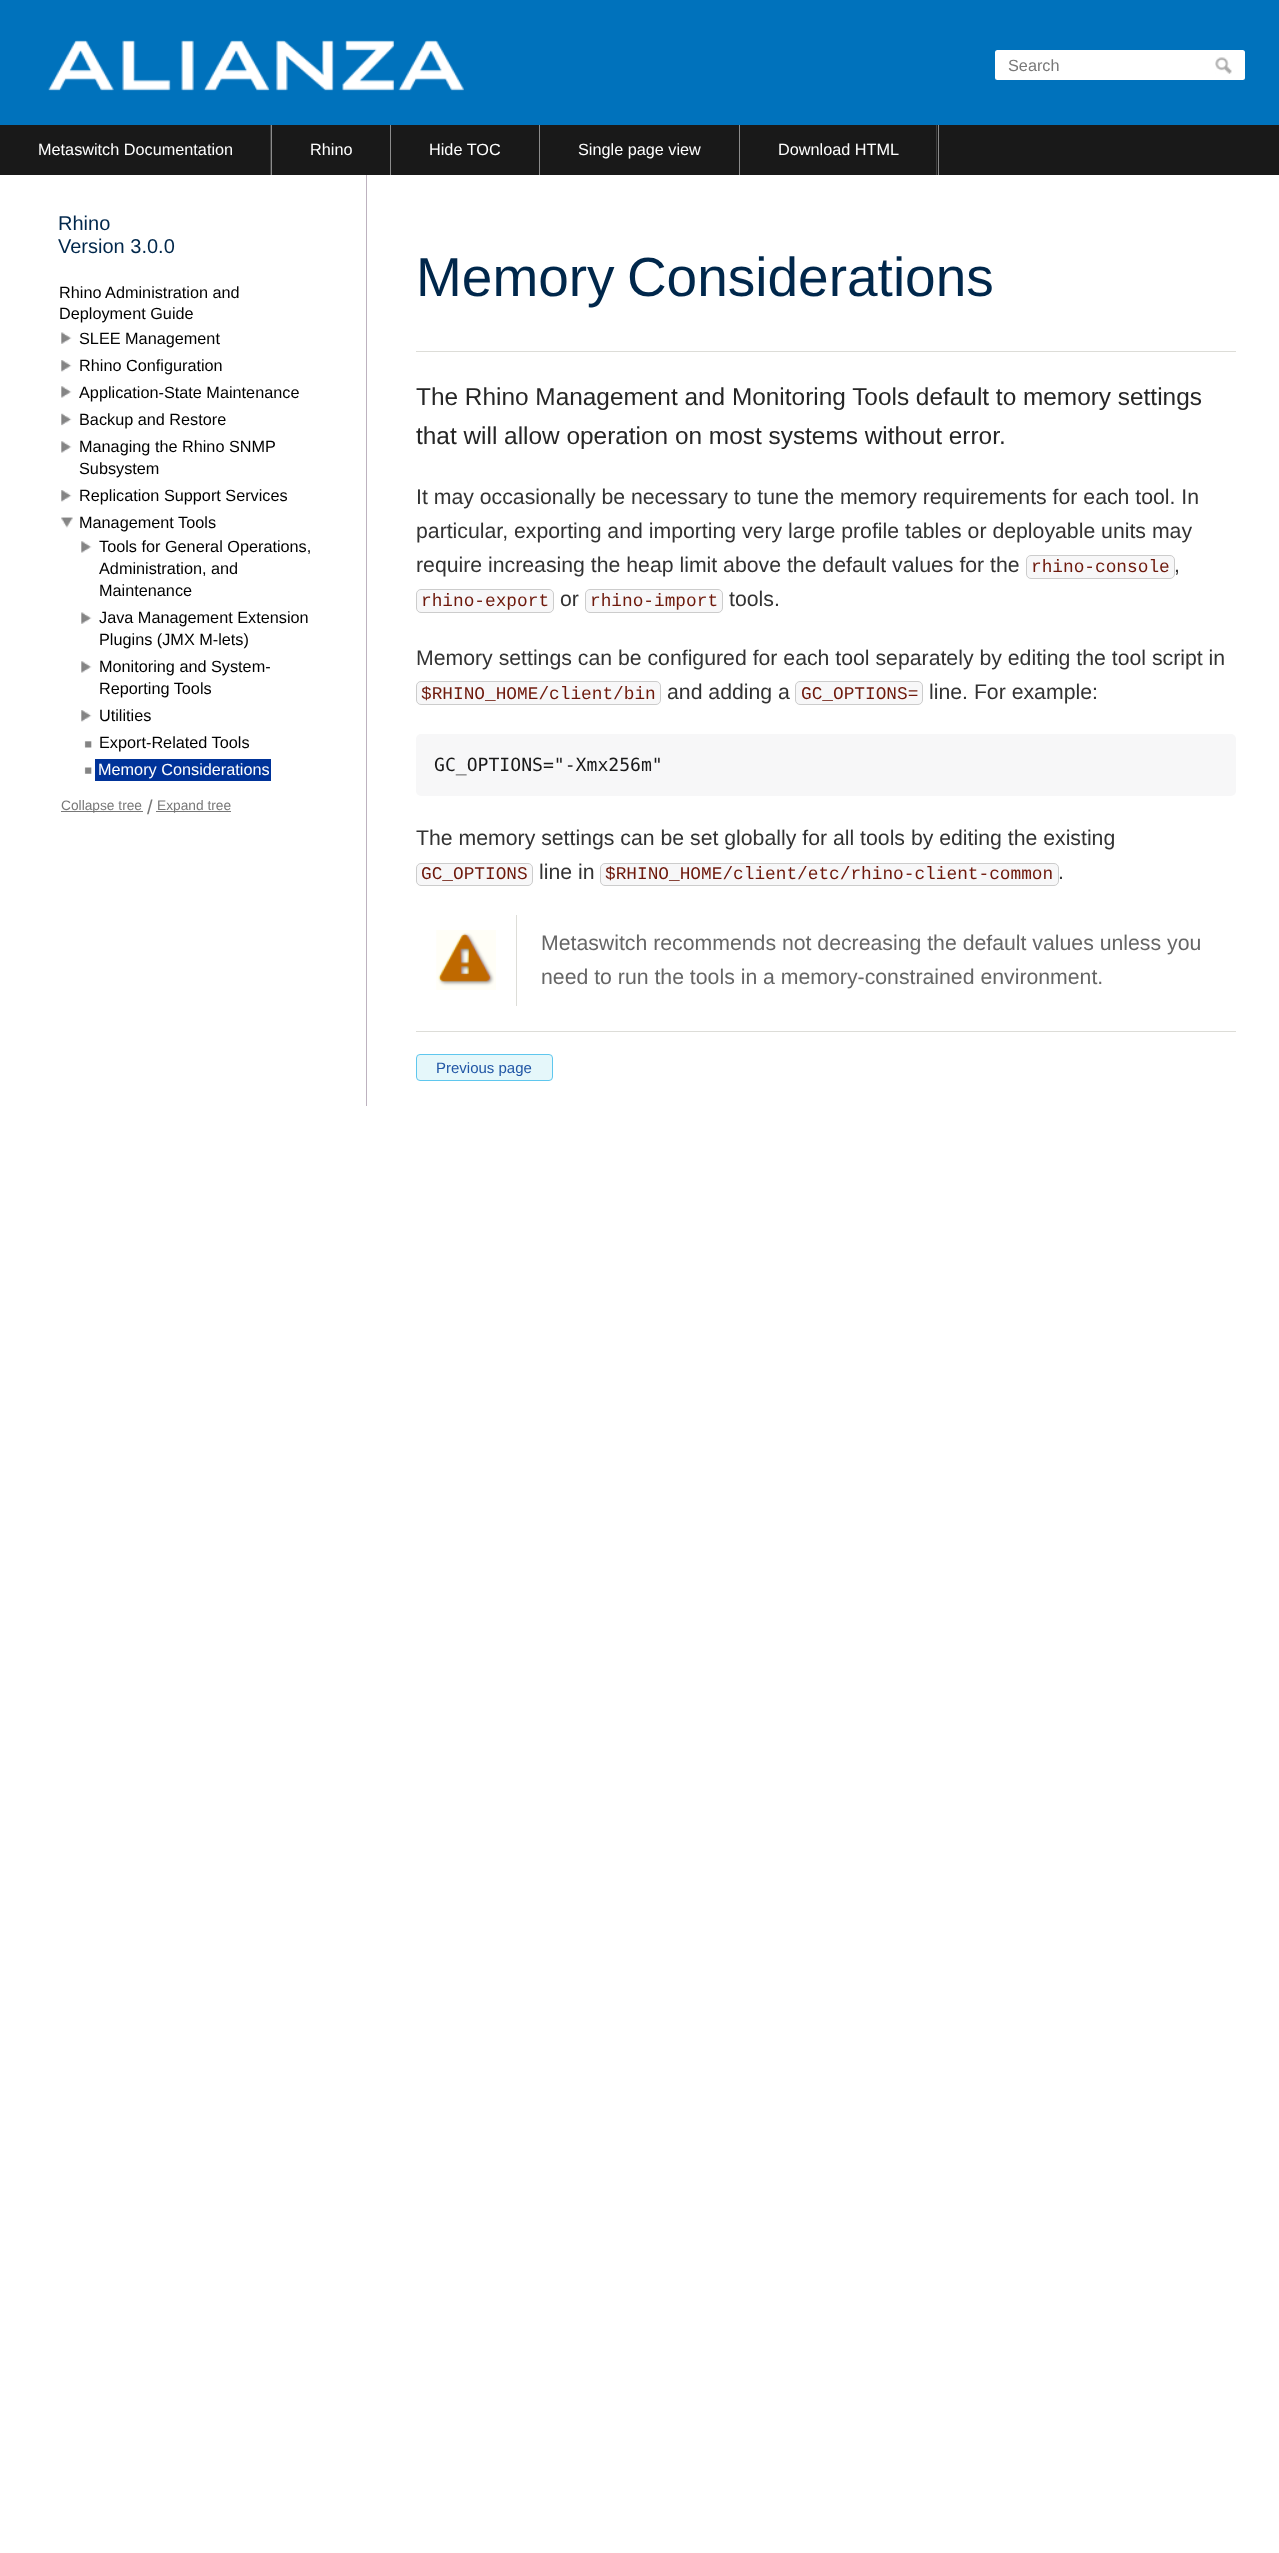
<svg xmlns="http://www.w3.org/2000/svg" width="1279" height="2553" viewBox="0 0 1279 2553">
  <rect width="100%" height="100%" fill="#fff"/>
  <path d="M0 0h1279v125H0z" fill="#0072bc"/>
  <image x="48" y="40" width="416" height="51" href="img/1.png"/>
  <path d="M0 125h1279v50H0z" fill="#191919"/>
  <rect x="995" y="50" width="250" height="30" rx="2.5" fill="#fff"/>
  <image x="1215" y="57" width="17" height="17" href="img/2.png"/>
  <path d="M938 125h1v50H938z" fill="#8c8c8c"/>
  <path d="M270 125h1v50H270z" fill="#404040"/>
  <path d="M271 125h1v50H271z" fill="#8c8c8c"/>
  <path d="M390 125h1v50H390z" fill="#8c8c8c"/>
  <path d="M539 125h1v50H539z" fill="#8c8c8c"/>
  <path d="M936 125h1v50H936z" fill="#404040"/>
  <path d="M739 125h1v50H739z" fill="#8c8c8c"/>
  <image x="61" y="332" width="11" height="12" href="img/3.png"/>
  <image x="61" y="360" width="11" height="12" href="img/4.png"/>
  <image x="61" y="386" width="11" height="12" href="img/5.png"/>
  <image x="61" y="413" width="11" height="13" href="img/6.png"/>
  <image x="61" y="441" width="11" height="12" href="img/5.png"/>
  <image x="61" y="490" width="11" height="12" href="img/4.png"/>
  <image x="61" y="517" width="12" height="11" href="img/7.png"/>
  <image x="81" y="541" width="11" height="12" href="img/5.png"/>
  <image x="81" y="612" width="11" height="12" href="img/3.png"/>
  <image x="81" y="661" width="11" height="12" href="img/5.png"/>
  <image x="81" y="710" width="11" height="12" href="img/4.png"/>
  <image x="84" y="741" width="8" height="7" href="img/8.png"/>
  <image x="84" y="767" width="8" height="7" href="img/9.png"/>
  <path d="M95 759h176v22H95z" fill="#039"/>
  <path d="M61 811h82v1H61z" fill="#787878"/>
  <path d="M156 811h75v1H156z" fill="#787878"/>
  <path d="M416 351h820v1H416z" fill="#ddddd8"/>
  <rect x="1026.5" y="555.5" width="148" height="23" rx="4.5" fill="#f7f7f8" stroke="#ccc"/>
  <rect x="416.5" y="589.5" width="137" height="23" rx="4.5" fill="#f7f7f8" stroke="#ccc"/>
  <rect x="585.5" y="589.5" width="137" height="23" rx="4.5" fill="#f7f7f8" stroke="#ccc"/>
  <rect x="416.5" y="681.5" width="244" height="23" rx="4.5" fill="#f7f7f8" stroke="#ccc"/>
  <rect x="795.5" y="681.5" width="127" height="23" rx="4.5" fill="#f7f7f8" stroke="#ccc"/>
  <rect x="416" y="734" width="820" height="62" rx="5" fill="#f7f7f8"/>
  <rect x="416.5" y="863.5" width="116" height="22" rx="4.5" fill="#f7f7f8" stroke="#ccc"/>
  <rect x="600.5" y="863.5" width="458" height="22" rx="4.5" fill="#f7f7f8" stroke="#ccc"/>
  <image x="436" y="930" width="60" height="60" href="img/10.png"/>
  <path d="M516 915h1v91H516z" fill="#ddddd8"/>
  <path d="M416 1031h820v1H416z" fill="#ddddd8"/>
  <rect x="416.5" y="1054.5" width="136" height="26" rx="3.5" fill="#e5f7fa" stroke="#5fc7ee"/>
  <path d="M366 175h1v931H366z" fill="#bdb2bf"/>
  <text x="1008" y="71" font-family="Liberation Sans" font-size="16.25" fill="#787878">Search</text>
  <g font-family="Liberation Sans" font-size="16.25" fill="#fff">
    <text x="38" y="155">Metaswitch Documentation</text>
    <text x="310" y="155">Rhino</text>
    <text x="429" y="155">Hide TOC</text>
    <text x="578" y="155">Single page view</text>
    <text x="778" y="155">Download HTML</text>
  </g>
  <g font-family="Liberation Sans" font-size="20" fill="#00274b">
    <text x="58" y="230">Rhino</text>
    <text x="58" y="253">Version 3.0.0</text>
  </g>
  <g font-family="Liberation Sans" font-size="16.25" fill="#000">
    <text x="59" y="298">Rhino Administration and</text>
    <text x="59" y="319">Deployment Guide</text>
    <text x="79" y="344">SLEE Management</text>
    <text x="79" y="371">Rhino Configuration</text>
    <text x="79" y="398">Application-State Maintenance</text>
    <text x="79" y="425">Backup and Restore</text>
    <text x="79" y="452">Managing the Rhino SNMP</text>
    <text x="79" y="474">Subsystem</text>
    <text x="79" y="501">Replication Support Services</text>
    <text x="79" y="528">Management Tools</text>
    <text x="99" y="552">Tools for General Operations,</text>
    <text x="99" y="574">Administration, and</text>
    <text x="99" y="596">Maintenance</text>
    <text x="99" y="623">Java Management Extension</text>
    <text x="99" y="645">Plugins (JMX M-lets)</text>
    <text x="99" y="672">Monitoring and System-</text>
    <text x="99" y="694">Reporting Tools</text>
    <text x="99" y="721">Utilities</text>
    <text x="99" y="748">Export-Related Tools</text>
  </g>
  <text x="98" y="775" font-family="Liberation Sans" font-size="16.25" fill="#fff">Memory Considerations</text>
  <text x="61" y="810" font-family="Liberation Sans" font-size="13.75" fill="#787878">Collapse tree</text>
  <text x="147" y="814" font-family="Liberation Sans" font-size="20" fill="#787878">/</text>
  <text x="157" y="810" font-family="Liberation Sans" font-size="13.75" fill="#787878">Expand tree</text>
  <text x="416" y="296" word-spacing="-3" font-family="Liberation Sans" font-size="55" fill="#00274b">Memory Considerations</text>
  <g font-family="Liberation Sans" font-size="24.4" fill="#262626">
    <text x="416" y="405">The Rhino Management and Monitoring Tools default to memory settings</text>
    <text x="416" y="444">that will allow operation on most systems without error.</text>
  </g>
  <g font-family="Liberation Sans" font-size="21.25" fill="#333">
    <text x="416" y="504">It may occasionally be necessary to tune the memory requirements for each tool. In</text>
    <text x="416" y="538">particular, exporting and importing very large profile tables or deployable units may</text>
    <text x="416" y="572">require increasing the heap limit above the default values for the</text>
  </g>
  <text x="1031" y="572" font-family="Liberation Mono" font-size="17.8" fill="#6d180b">rhino-console</text>
  <text x="1174" y="572" font-family="Liberation Sans" font-size="21.25" fill="#333">,</text>
  <text x="421" y="606" font-family="Liberation Mono" font-size="17.8" fill="#6d180b">rhino-export</text>
  <text x="560" y="606" font-family="Liberation Sans" font-size="21.25" fill="#333">or</text>
  <text x="590" y="606" font-family="Liberation Mono" font-size="17.8" fill="#6d180b">rhino-import</text>
  <g font-family="Liberation Sans" font-size="21.25" fill="#333">
    <text x="729" y="606">tools.</text>
    <text x="416" y="665">Memory settings can be configured for each tool separately by editing the tool script in</text>
  </g>
  <text x="421" y="699" font-family="Liberation Mono" font-size="17.8" fill="#6d180b">$RHINO_HOME/client/bin</text>
  <text x="667" y="699" font-family="Liberation Sans" font-size="21.25" fill="#333">and adding a</text>
  <text x="801" y="699" font-family="Liberation Mono" font-size="17.8" fill="#6d180b">GC_OPTIONS=</text>
  <text x="929" y="699" font-family="Liberation Sans" font-size="21.25" fill="#333">line. For example:</text>
  <text x="434" y="771" font-family="DejaVu Sans Mono" font-size="18.1" fill="#191919">GC_OPTIONS="-Xmx256m"</text>
  <text x="416" y="845" font-family="Liberation Sans" font-size="21.25" fill="#333">The memory settings can be set globally for all tools by editing the existing</text>
  <text x="421" y="879" font-family="Liberation Mono" font-size="17.8" fill="#6d180b">GC_OPTIONS</text>
  <text x="539" y="879" font-family="Liberation Sans" font-size="21.25" fill="#333">line in</text>
  <text x="605" y="879" font-family="Liberation Mono" font-size="17.8" fill="#6d180b">$RHINO_HOME/client/etc/rhino-client-common</text>
  <text x="1058" y="879" font-family="Liberation Sans" font-size="21.25" fill="#333">.</text>
  <g font-family="Liberation Sans" font-size="21.25" fill="#666">
    <text x="541" y="950">Metaswitch recommends not decreasing the default values unless you</text>
    <text x="541" y="984">need to run the tools in a memory-constrained environment.</text>
  </g>
  <text x="436" y="1073" font-family="Liberation Sans" font-size="15" fill="#2156a5">Previous page</text>
</svg>
